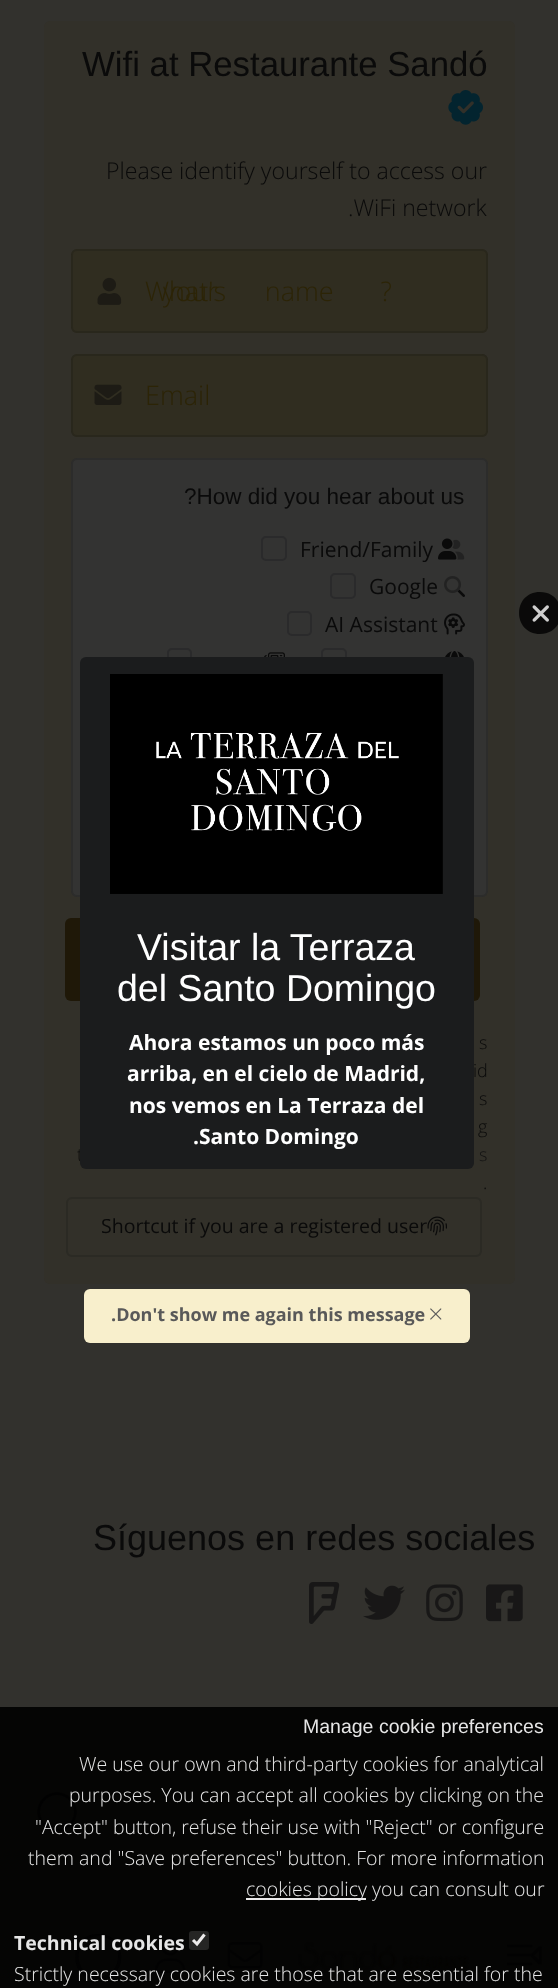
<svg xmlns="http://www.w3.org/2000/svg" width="558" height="1988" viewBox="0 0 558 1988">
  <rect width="100%" height="100%" fill="#32312d"/>
  <path d="M0 1707h558v281H0z" fill="#050504"/>
  <rect x="44" y="21" width="471" height="1263" rx="6" fill="#323029"/>
  <image x="448" y="90" width="35" height="35" href="img/1.png"/>
  <rect x="71" y="249" width="417" height="84" rx="6" fill="#302d20"/>
  <rect x="72" y="250" width="415" height="82" rx="5" fill="none" stroke="#07070826" stroke-width="2"/>
  <image x="97" y="277" width="25" height="28" href="img/2.png"/>
  <rect x="310" y="355" width="177" height="58" rx="5" fill="none" stroke="#2b2a24" stroke-width="2"/>
  <rect x="71" y="354" width="417" height="83" rx="6" fill="#302d20"/>
  <rect x="72" y="355" width="415" height="81" rx="5" fill="none" stroke="#07070826" stroke-width="2"/>
  <image x="94" y="384" width="28" height="21" href="img/3.png"/>
  <rect x="71" y="458" width="417" height="439" rx="6" fill="#333332"/>
  <rect x="72" y="459" width="415" height="437" rx="5" fill="none" stroke="#07070826" stroke-width="2"/>
  <rect x="262" y="537" width="24" height="23" rx="4" fill="none" stroke="#2a2a2b" stroke-width="2"/>
  <image x="438" y="538" width="27" height="22" href="img/4.png"/>
  <rect x="331" y="574" width="24" height="24" rx="4" fill="none" stroke="#2a2a2b" stroke-width="2"/>
  <image x="444" y="576" width="21" height="21" href="img/5.png"/>
  <rect x="288" y="612" width="23" height="23" rx="4" fill="none" stroke="#2a2a2b" stroke-width="2"/>
  <image x="444" y="613" width="21" height="22" href="img/6.png"/>
  <rect x="168" y="649" width="23" height="24" rx="4" fill="none" stroke="#2a2a2b" stroke-width="2"/>
  <image x="264" y="652" width="21" height="5" href="img/7.png"/>
  <rect x="322" y="649" width="24" height="24" rx="4" fill="none" stroke="#2a2a2b" stroke-width="2"/>
  <image x="445" y="651" width="19" height="6" href="img/8.png"/>
  <rect x="65" y="918" width="415" height="83" rx="6" fill="#1f1808"/>
  <rect x="67" y="1198" width="414" height="58" rx="5" fill="none" stroke="#2b2a24" stroke-width="2"/>
  <image x="309" y="1582" width="31" height="42" href="img/10.png"/>
  <image x="363" y="1585" width="42" height="35" href="img/11.png"/>
  <image x="426" y="1584" width="37" height="38" href="img/12.png"/>
  <image x="486" y="1584" width="37" height="38" href="img/13.png"/>
  <image x="37" y="1792" width="40" height="40" href="img/14.png"/>
  <path d="M540 634C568 634 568 592 540 592C512 592 512 634 540 634Z" fill="#000000cc"/>
  <image x="532" y="605" width="17" height="17" href="img/15.png"/>
  <rect x="84" y="1289" width="386" height="54" rx="6" fill="#f8efcc"/>
  <image x="430" y="1308" width="12" height="12" href="img/17.png"/>
  <path d="M246 1898h120v2H246z" fill="#ebeaea"/>
  <rect x="189" y="1931" width="20" height="19" rx="3" fill="#252524"/>
  <path d="M193 1940L197 1944L204.5 1934.5" fill="none" stroke="#ebeaea" stroke-width="3.1"/>
  <path d="M98 1936C125 1936 125 1977 98 1977C72 1977 72 1936 98 1936ZM98 1980C129 1980 129 1934 98 1934C68 1934 68 1980 98 1980Z" fill="#020202"/>
  <image x="155" y="1938" width="31" height="35" href="img/18.png"/>
  <image x="227" y="1942" width="36" height="27" href="img/19.png"/>
  <image x="298" y="1942" width="171" height="28" href="img/20.png"/>
  <image x="531" y="1946" width="11" height="19" href="img/22.png"/>
  <image x="507" y="1944" width="26" height="22" href="img/21.png"/>
  <text x="82" y="76" font-family="Liberation Sans" font-size="34.75" fill="#0a0a0a">Wifi at Restaurante Sandó</text>
  <g font-family="Open Sans" font-size="23.1" font-weight="300" fill="#0a0a0a">
    <text x="106" y="179">Please identify yourself to access our</text>
    <text x="348" y="216">.WiFi network</text>
  </g>
  <g font-family="Open Sans" font-size="27" font-weight="300" fill="#2c2406">
    <text x="145" y="301">What's</text>
    <text x="163" y="301" word-spacing="40">your name ?</text>
    <text x="145" y="405">Email</text>
  </g>
  <text x="184" y="504" font-family="Liberation Sans" font-size="22.5" fill="#0a0a0a">?How did you hear about us</text>
  <g font-family="Open Sans" font-size="21" fill="#0a0a0a">
    <text x="300" y="557">Friend/Family</text>
    <text x="369" y="594">Google</text>
    <text x="325" y="632">AI Assistant</text>
  </g>
  <g font-family="Open Sans" font-size="18" font-weight="300" fill="#0a0a0a">
    <text x="479" y="1049">s</text>
    <text x="473" y="1077">id</text>
    <text x="479" y="1105">s</text>
    <text x="478" y="1133">g</text>
    <text x="77" y="1161">t</text>
  </g>
  <text x="479" y="1161" font-family="Open Sans" font-size="18" font-weight="300" fill="#121212">s</text>
  <text x="483" y="1189" font-family="Open Sans" font-size="18" font-weight="300" fill="#0a0a0a">.</text>
  <text x="101" y="1233" font-family="Open Sans" font-size="19.5" fill="#0a0a0a">Shortcut if you are a registered user</text>
  <image x="427" y="1216" width="20" height="20" href="img/9.png"/>
  <text x="93" y="1550" font-family="Liberation Sans" font-size="36" fill="#0a0a0a">Síguenos en redes sociales</text>
  <rect x="80" y="657" width="394" height="512" rx="6" fill="#1b1c1d"/>
  <image x="110" y="674" width="333" height="220" href="img/16.png"/>
  <g font-family="Liberation Sans" font-size="37.5" fill="#fff">
    <text x="137" y="960">Visitar la Terraza</text>
    <text x="117" y="1001">del Santo Domingo</text>
  </g>
  <g font-family="Open Sans" font-size="21" font-weight="bold" fill="#fff">
    <text x="129" y="1050">Ahora estamos un poco más</text>
    <text x="127" y="1081">arriba, en el cielo de Madrid,</text>
    <text x="129" y="1113">nos vemos en La Terraza del</text>
    <text x="193" y="1144">.Santo Domingo</text>
  </g>
  <text x="111" y="1321" font-family="Open Sans" font-size="18" font-weight="bold" fill="#595959">.Don't show me again this message</text>
  <text x="303" y="1733" font-family="Liberation Sans" font-size="19.5" fill="#e6e6e6">Manage cookie preferences</text>
  <g font-family="Open Sans" font-size="19.5" font-weight="300" fill="#e6e6e6">
    <text x="79" y="1771">We use our own and third-party cookies for analytical</text>
    <text x="69" y="1802">purposes. You can accept all cookies by clicking on the</text>
    <text x="35" y="1834">"Accept" button, refuse their use with "Reject" or configure</text>
    <text x="28" y="1865">them and "Save preferences" button. For more information</text>
    <text x="246" y="1896">cookies policy</text>
    <text x="372" y="1896">you can consult our</text>
  </g>
  <text x="14" y="1950" font-family="Open Sans" font-size="19.5" font-weight="bold" fill="#e6e6e6">Technical cookies</text>
  <text x="14" y="1981" font-family="Open Sans" font-size="19.5" font-weight="300" fill="#e6e6e6">Strictly necessary cookies are those that are essential for the</text>
</svg>
